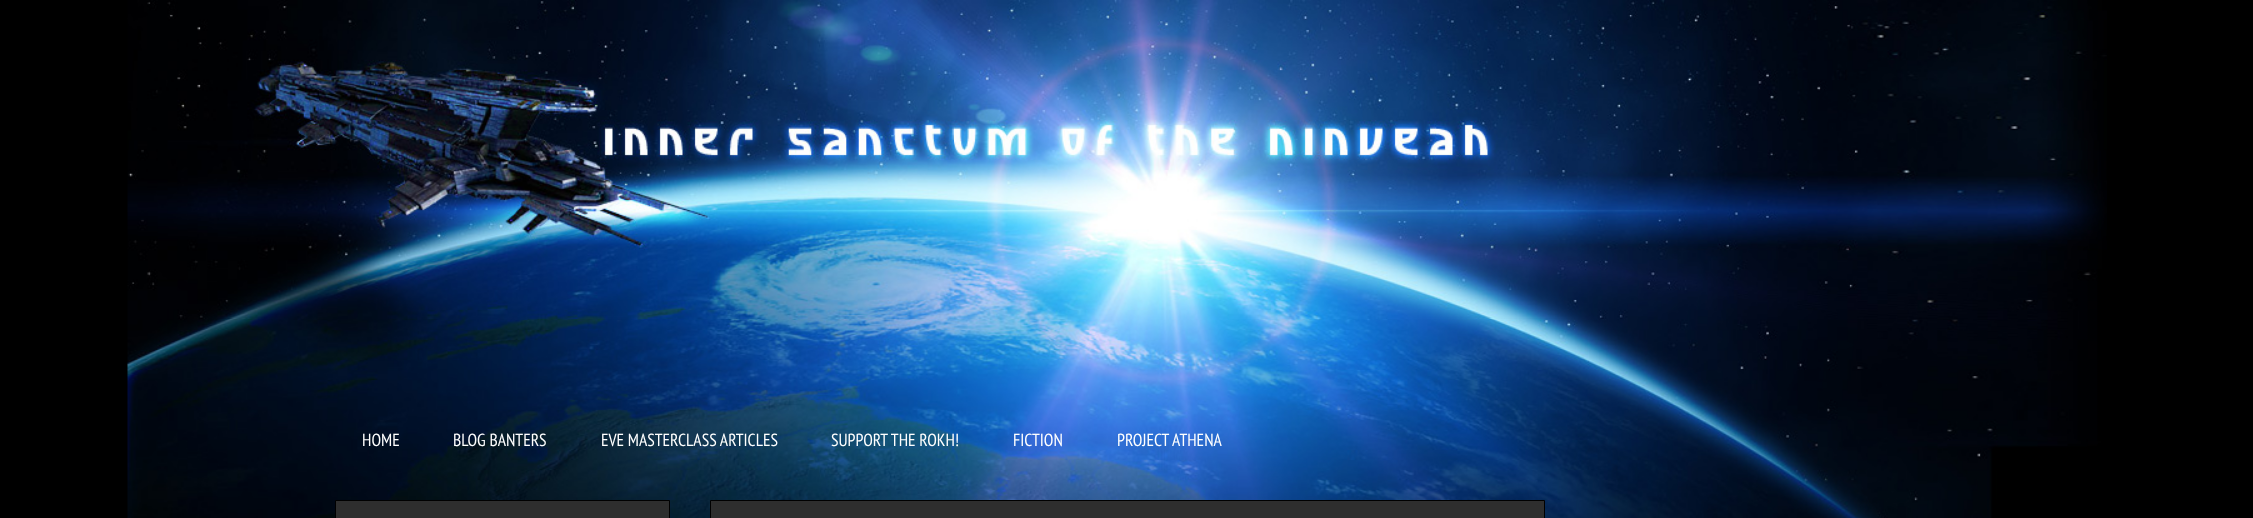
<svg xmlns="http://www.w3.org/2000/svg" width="2253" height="518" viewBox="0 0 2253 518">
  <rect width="100%" height="100%" fill="#000"/>
  <image x="127" y="0" width="1980" height="518" href="img/1.png"/>
  <path d="M335.5 500.5h334v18H335.5z" fill="#2e2e2e" stroke="#000"/>
  <path d="M710.5 500.5h834v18H710.5z" fill="#2e2e2e" stroke="#000"/>
  <g font-family="PT Sans Narrow" font-size="17.5" fill="#fff">
    <text x="362" y="446">HOME</text>
    <text x="453" y="446">BLOG BANTERS</text>
    <text x="601" y="446">EVE MASTERCLASS ARTICLES</text>
    <text x="831" y="446">SUPPORT THE ROKH!</text>
    <text x="1013" y="446">FICTION</text>
    <text x="1117" y="446">PROJECT ATHENA</text>
  </g>
</svg>
